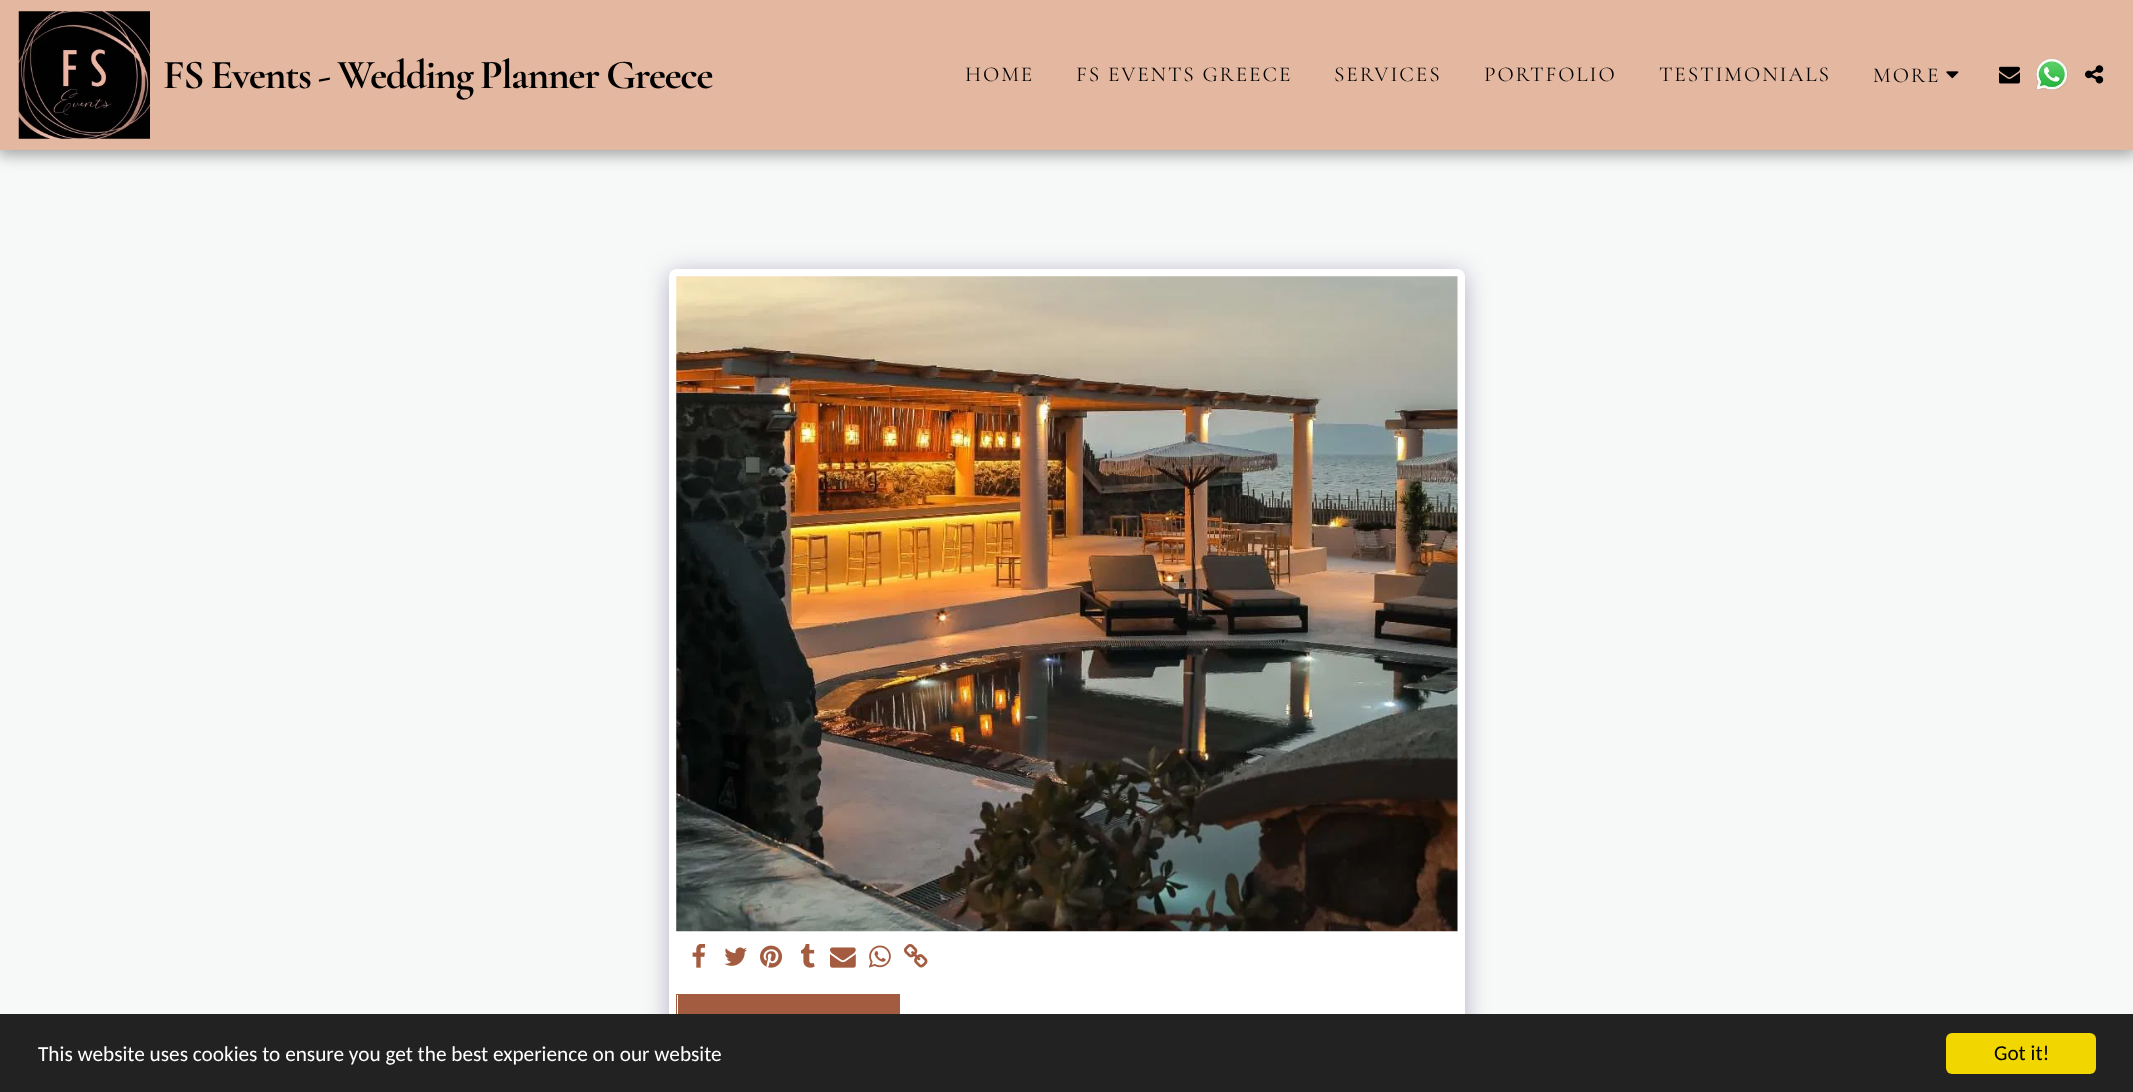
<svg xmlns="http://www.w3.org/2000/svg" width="2133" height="1092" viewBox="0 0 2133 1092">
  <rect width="100%" height="100%" fill="#f7f9f8"/>
  <path d="M-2 0h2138v155H-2z" fill="#00000059" filter="blur(7.5px)"/>
  <path d="M0 0h2133v150H0z" fill="#e4b7a0"/>
  <image x="18" y="11" width="132" height="128" href="img/1.png"/>
  <image x="1946" y="71" width="13" height="8" href="img/2.png"/>
  <image x="1999" y="66" width="21" height="18" href="img/3.png"/>
  <image x="2036" y="58" width="32" height="32" href="img/4.png"/>
  <image x="2085" y="65" width="19" height="19" href="img/5.png"/>
  <rect x="669" y="273" width="796" height="798" rx="8" fill="#4d3f7a66" filter="blur(12.5px)"/>
  <rect x="669" y="269" width="796" height="799" rx="8" fill="#fff"/>
  <image x="676" y="276" width="782" height="656" href="img/6.png"/>
  <image x="692" y="944" width="14" height="24" href="img/7.png"/>
  <image x="724" y="947" width="23" height="19" href="img/8.png"/>
  <image x="760" y="945" width="23" height="23" href="img/9.png"/>
  <image x="800" y="944" width="15" height="24" href="img/10.png"/>
  <image x="830" y="947" width="26" height="21" href="img/11.png"/>
  <image x="869" y="945" width="22" height="23" href="img/12.png"/>
  <image x="904" y="944" width="24" height="24" href="img/13.png"/>
  <path d="M678 995h221v19H678z" fill="#a45c40"/>
  <path d="M676 994h224v1H676z" fill="#a45c40"/>
  <path d="M899 994h1v20H899z" fill="#a45c40"/>
  <path d="M676 994h1v20H676z" fill="#a45c40"/>
  <path d="M0 1014h2133v78H0z" fill="#222"/>
  <rect x="1946" y="1033" width="150" height="41" rx="6" fill="#f1d600"/>
  <text x="163" y="88" word-spacing="-1.25" font-family="Cormorant Garamond" font-size="41.25" font-weight="bold" letter-spacing="-1.25" fill="#000">FS Events - Wedding Planner Greece</text>
  <g font-family="Cormorant Garamond" font-size="21.25" letter-spacing="1.9" fill="#000">
    <text x="965" y="81">HOME</text>
    <text x="1076" y="81">FS EVENTS GREECE</text>
    <text x="1334" y="81">SERVICES</text>
    <text x="1484" y="81">PORTFOLIO</text>
    <text x="1659" y="81">TESTIMONIALS</text>
    <text x="1873" y="82">MORE</text>
  </g>
  <text x="38" y="1061" font-family="Carlito" font-size="21.25" fill="#fff">This website uses cookies to ensure you get the best experience on our website</text>
  <text x="1994" y="1060" font-family="Carlito" font-size="21.25" fill="#000">Got it!</text>
</svg>
